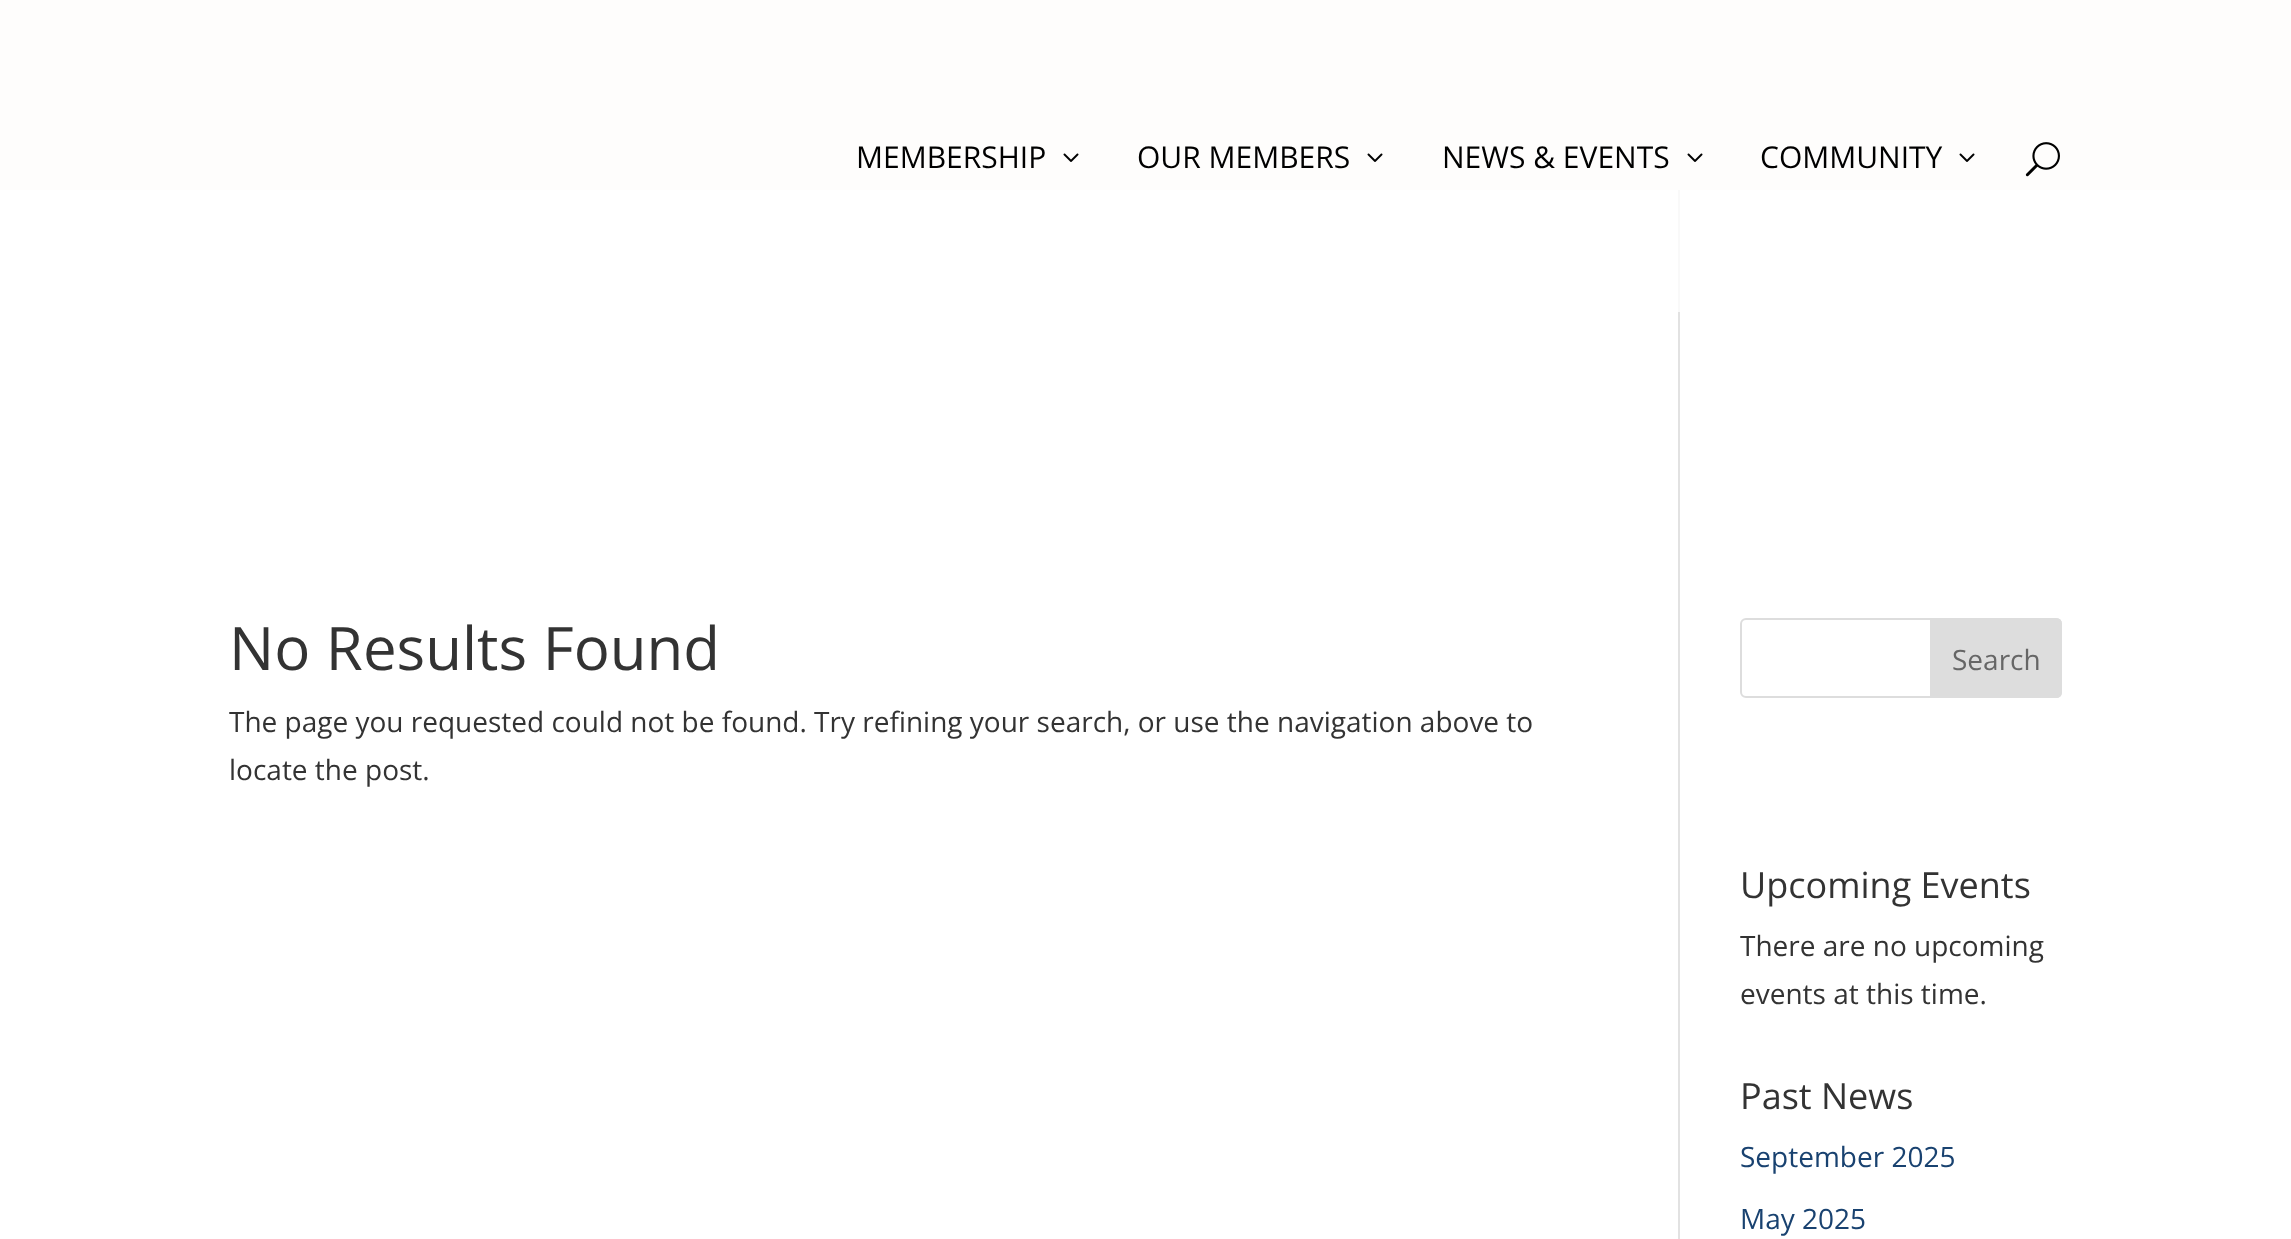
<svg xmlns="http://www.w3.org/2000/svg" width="2291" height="1239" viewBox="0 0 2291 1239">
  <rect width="100%" height="100%" fill="#fefdfc"/>
  <image x="1063" y="153" width="16" height="9" href="img/1.png"/>
  <image x="1367" y="153" width="16" height="9" href="img/1.png"/>
  <image x="1687" y="153" width="16" height="9" href="img/1.png"/>
  <image x="1959" y="153" width="16" height="9" href="img/1.png"/>
  <image x="2025" y="142" width="35" height="35" href="img/2.png"/>
  <path d="M0 190h2291v1049H0z" fill="#fff"/>
  <path d="M1678 312h2v927H1678z" fill="#e2e2e2"/>
  <path d="M1678 190h2v122H1678z" fill="#f9f9f9"/>
  <rect x="1741" y="619" width="320" height="78" rx="5" fill="none" stroke="#ddd" stroke-width="2"/>
  <path d="M1931 619H2056C2059 619 2061 621 2061 624V692C2061 695 2059 697 2056 697H1931Z" fill="#ddd" stroke="#ddd" stroke-width="2"/>
  <g font-family="Open Sans" font-size="30" fill="#000">
    <text x="856" y="168">MEMBERSHIP</text>
    <text x="1137" y="168">OUR MEMBERS</text>
    <text x="1442" y="168">NEWS &amp; EVENTS</text>
    <text x="1760" y="168">COMMUNITY</text>
  </g>
  <text x="229" y="670" font-family="Open Sans" font-size="60" fill="#333">No Results Found</text>
  <g font-family="Open Sans" font-size="28" fill="#333">
    <text x="229" y="732">The page you requested could not be found. Try refining your search, or use the navigation above to</text>
    <text x="229" y="780">locate the post.</text>
  </g>
  <text x="1952" y="670" font-family="Open Sans" font-size="28" fill="#666">Search</text>
  <text x="1740" y="898" font-family="Open Sans" font-size="36" fill="#333">Upcoming Events</text>
  <g font-family="Open Sans" font-size="28" fill="#333">
    <text x="1740" y="956">There are no upcoming</text>
    <text x="1740" y="1004">events at this time.</text>
  </g>
  <text x="1740" y="1109" font-family="Open Sans" font-size="36" fill="#333">Past News</text>
  <g font-family="Open Sans" font-size="28" fill="#194270">
    <text x="1740" y="1167">September 2025</text>
    <text x="1740" y="1229">May 2025</text>
  </g>
</svg>
